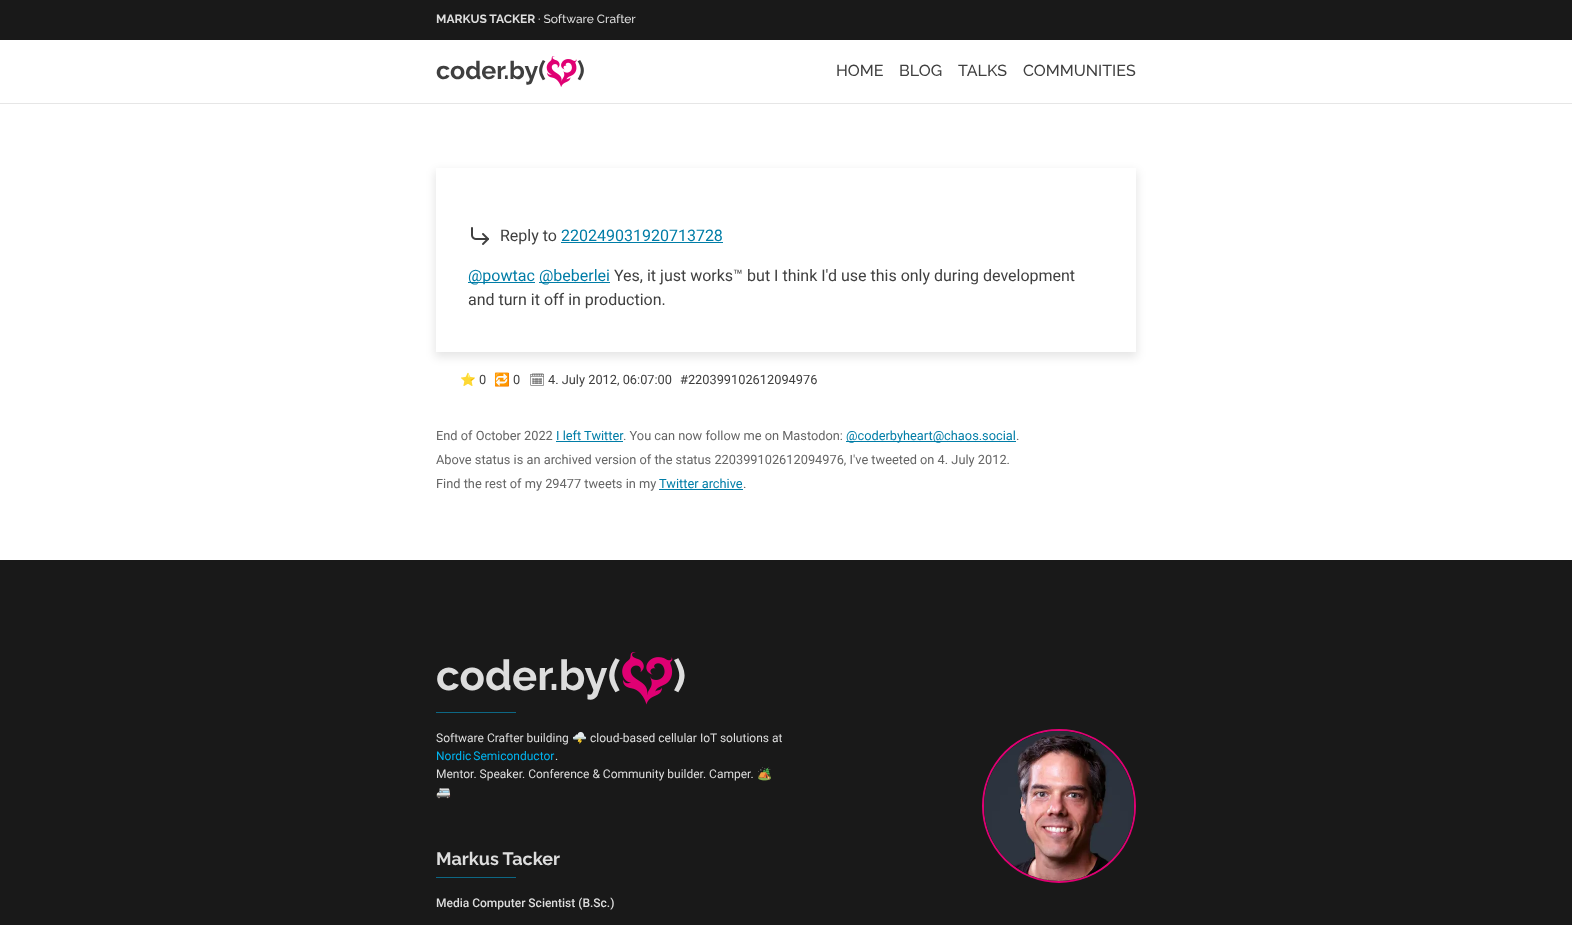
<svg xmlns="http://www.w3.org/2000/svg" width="1572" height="925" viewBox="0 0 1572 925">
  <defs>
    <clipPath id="clip1"><path d="M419 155H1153V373H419ZM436 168H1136V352H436Z" clip-rule="evenodd"/></clipPath>
  </defs>
  <rect width="100%" height="100%" fill="#fff"/>
  <path d="M0 0h1572v40H0z" fill="#191919"/>
  <path d="M0 103h1572v1H0z" fill="#e6e6e6"/>
  <image x="546" y="56" width="31" height="31" href="img/1.png"/>
  <g clip-path="url(#clip1)">
    <path d="M435 171h702v186H435z" fill="#0000001a" filter="blur(5px)"/>
  </g>
  <image x="471" y="227" width="18" height="18" href="img/2.png"/>
  <path d="M561 242h162v1H561z" fill="#007da7"/>
  <path d="M468 282h67v1H468z" fill="#007da7"/>
  <path d="M539 282h71v1H539z" fill="#007da7"/>
  <path d="M556 441h67v1H556z" fill="#007da7"/>
  <path d="M846 441h170v1H846z" fill="#007da7"/>
  <path d="M659 489h84v1H659z" fill="#007da7"/>
  <path d="M0 560h1572v365H0z" fill="#191919"/>
  <image x="622" y="652" width="51" height="53" href="img/3.png"/>
  <path d="M436 712h80v1H436z" fill="#0d6784"/>
  <path d="M436 877h80v1H436z" fill="#0d6784"/>
  <circle cx="1059" cy="806" r="76" fill="none" stroke="#e00073" stroke-width="2"/>
  <image x="984" y="731" width="150" height="150" href="img/4.png"/>
  <text x="436" y="23" font-family="Raleway" font-size="12" font-weight="bold" fill="#ddd">MARKUS TACKER</text>
  <text x="538" y="23" font-family="Raleway" font-size="12" font-weight="500" fill="#ddd">· Software Crafter</text>
  <g font-family="Raleway" font-size="25" font-weight="bold" fill="#3f3f3f">
    <text x="436" y="79">coder.by(</text>
    <text x="577" y="79">)</text>
  </g>
  <g font-family="Raleway" font-size="16" font-weight="500" fill="#3f3f3f">
    <text x="836" y="76">HOME</text>
    <text x="899" y="76">BLOG</text>
    <text x="958" y="76">TALKS</text>
    <text x="1023" y="76">COMMUNITIES</text>
  </g>
  <text x="500" y="241" font-family="Roboto" font-size="16" fill="#3f3f3f">Reply to</text>
  <g font-family="Roboto" font-size="16" fill="#007da7">
    <text x="561" y="241">220249031920713728</text>
    <text x="468" y="281">@powtac</text>
    <text x="539" y="281">@beberlei</text>
  </g>
  <g font-family="Roboto" font-size="16" fill="#3f3f3f">
    <text x="614" y="281">Yes, it just works™ but I think I'd use this only during development</text>
    <text x="468" y="305">and turn it off in production.</text>
  </g>
  <text x="460" y="384" font-family="Noto Color Emoji" font-size="12.8" fill="#3f3f3f">⭐</text>
  <text x="479" y="384" font-family="Roboto" font-size="12.8" fill="#3f3f3f">0</text>
  <text x="494" y="384" font-family="Noto Color Emoji" font-size="12.8" fill="#3f3f3f">🔁</text>
  <text x="513" y="384" font-family="Roboto" font-size="12.8" fill="#3f3f3f">0</text>
  <text x="529" y="384" font-family="Noto Emoji" font-size="12.8" fill="#3f3f3f">🗓</text>
  <g font-family="Roboto" font-size="12.8" fill="#3f3f3f">
    <text x="548" y="384">4. July 2012, 06:07:00</text>
    <text x="680" y="384">#220399102612094976</text>
  </g>
  <text x="436" y="440" font-family="Roboto" font-size="12.8" fill="#666">End of October 2022</text>
  <text x="556" y="440" font-family="Roboto" font-size="12.8" fill="#007da7">I left Twitter</text>
  <text x="623" y="440" font-family="Roboto" font-size="12.8" fill="#666">. You can now follow me on Mastodon:</text>
  <text x="846" y="440" font-family="Roboto" font-size="12.8" fill="#007da7">@coderbyheart@chaos.social</text>
  <g font-family="Roboto" font-size="12.8" fill="#666">
    <text x="1016" y="440">.</text>
    <text x="436" y="464">Above status is an archived version of the status 220399102612094976, I've tweeted on 4. July 2012.</text>
    <text x="436" y="488">Find the rest of my 29477 tweets in my</text>
  </g>
  <text x="659" y="488" font-family="Roboto" font-size="12.8" fill="#007da7">Twitter archive</text>
  <text x="743" y="488" font-family="Roboto" font-size="12.8" fill="#666">.</text>
  <g font-family="Raleway" font-size="42" font-weight="bold" fill="#ddd">
    <text x="436" y="690">coder.by(</text>
    <text x="673" y="690">)</text>
  </g>
  <text x="436" y="742" font-family="Roboto" font-size="12" fill="#ddd">Software Crafter building</text>
  <text x="572" y="742" font-family="Noto Color Emoji" font-size="12" fill="#ddd">🌩️</text>
  <text x="590" y="742" font-family="Roboto" font-size="12" fill="#ddd">cloud-based cellular IoT solutions at</text>
  <text x="436" y="760" word-spacing="-1" font-family="Roboto" font-size="12" fill="#00b4ef">Nordic Semiconductor</text>
  <g font-family="Roboto" font-size="12" fill="#ddd">
    <text x="555" y="760">.</text>
    <text x="436" y="778">Mentor. Speaker. Conference &amp; Community builder. Camper.</text>
  </g>
  <g font-family="Noto Color Emoji" font-size="12" fill="#ddd">
    <text x="757" y="778">🏕️</text>
    <text x="436" y="796">🚐</text>
  </g>
  <text x="436" y="865" font-family="Raleway" font-size="18" font-weight="bold" fill="#ddd">Markus Tacker</text>
  <text x="436" y="907" font-family="Roboto" font-size="12" font-weight="500" fill="#ddd">Media Computer Scientist (B.Sc.)</text>
</svg>
